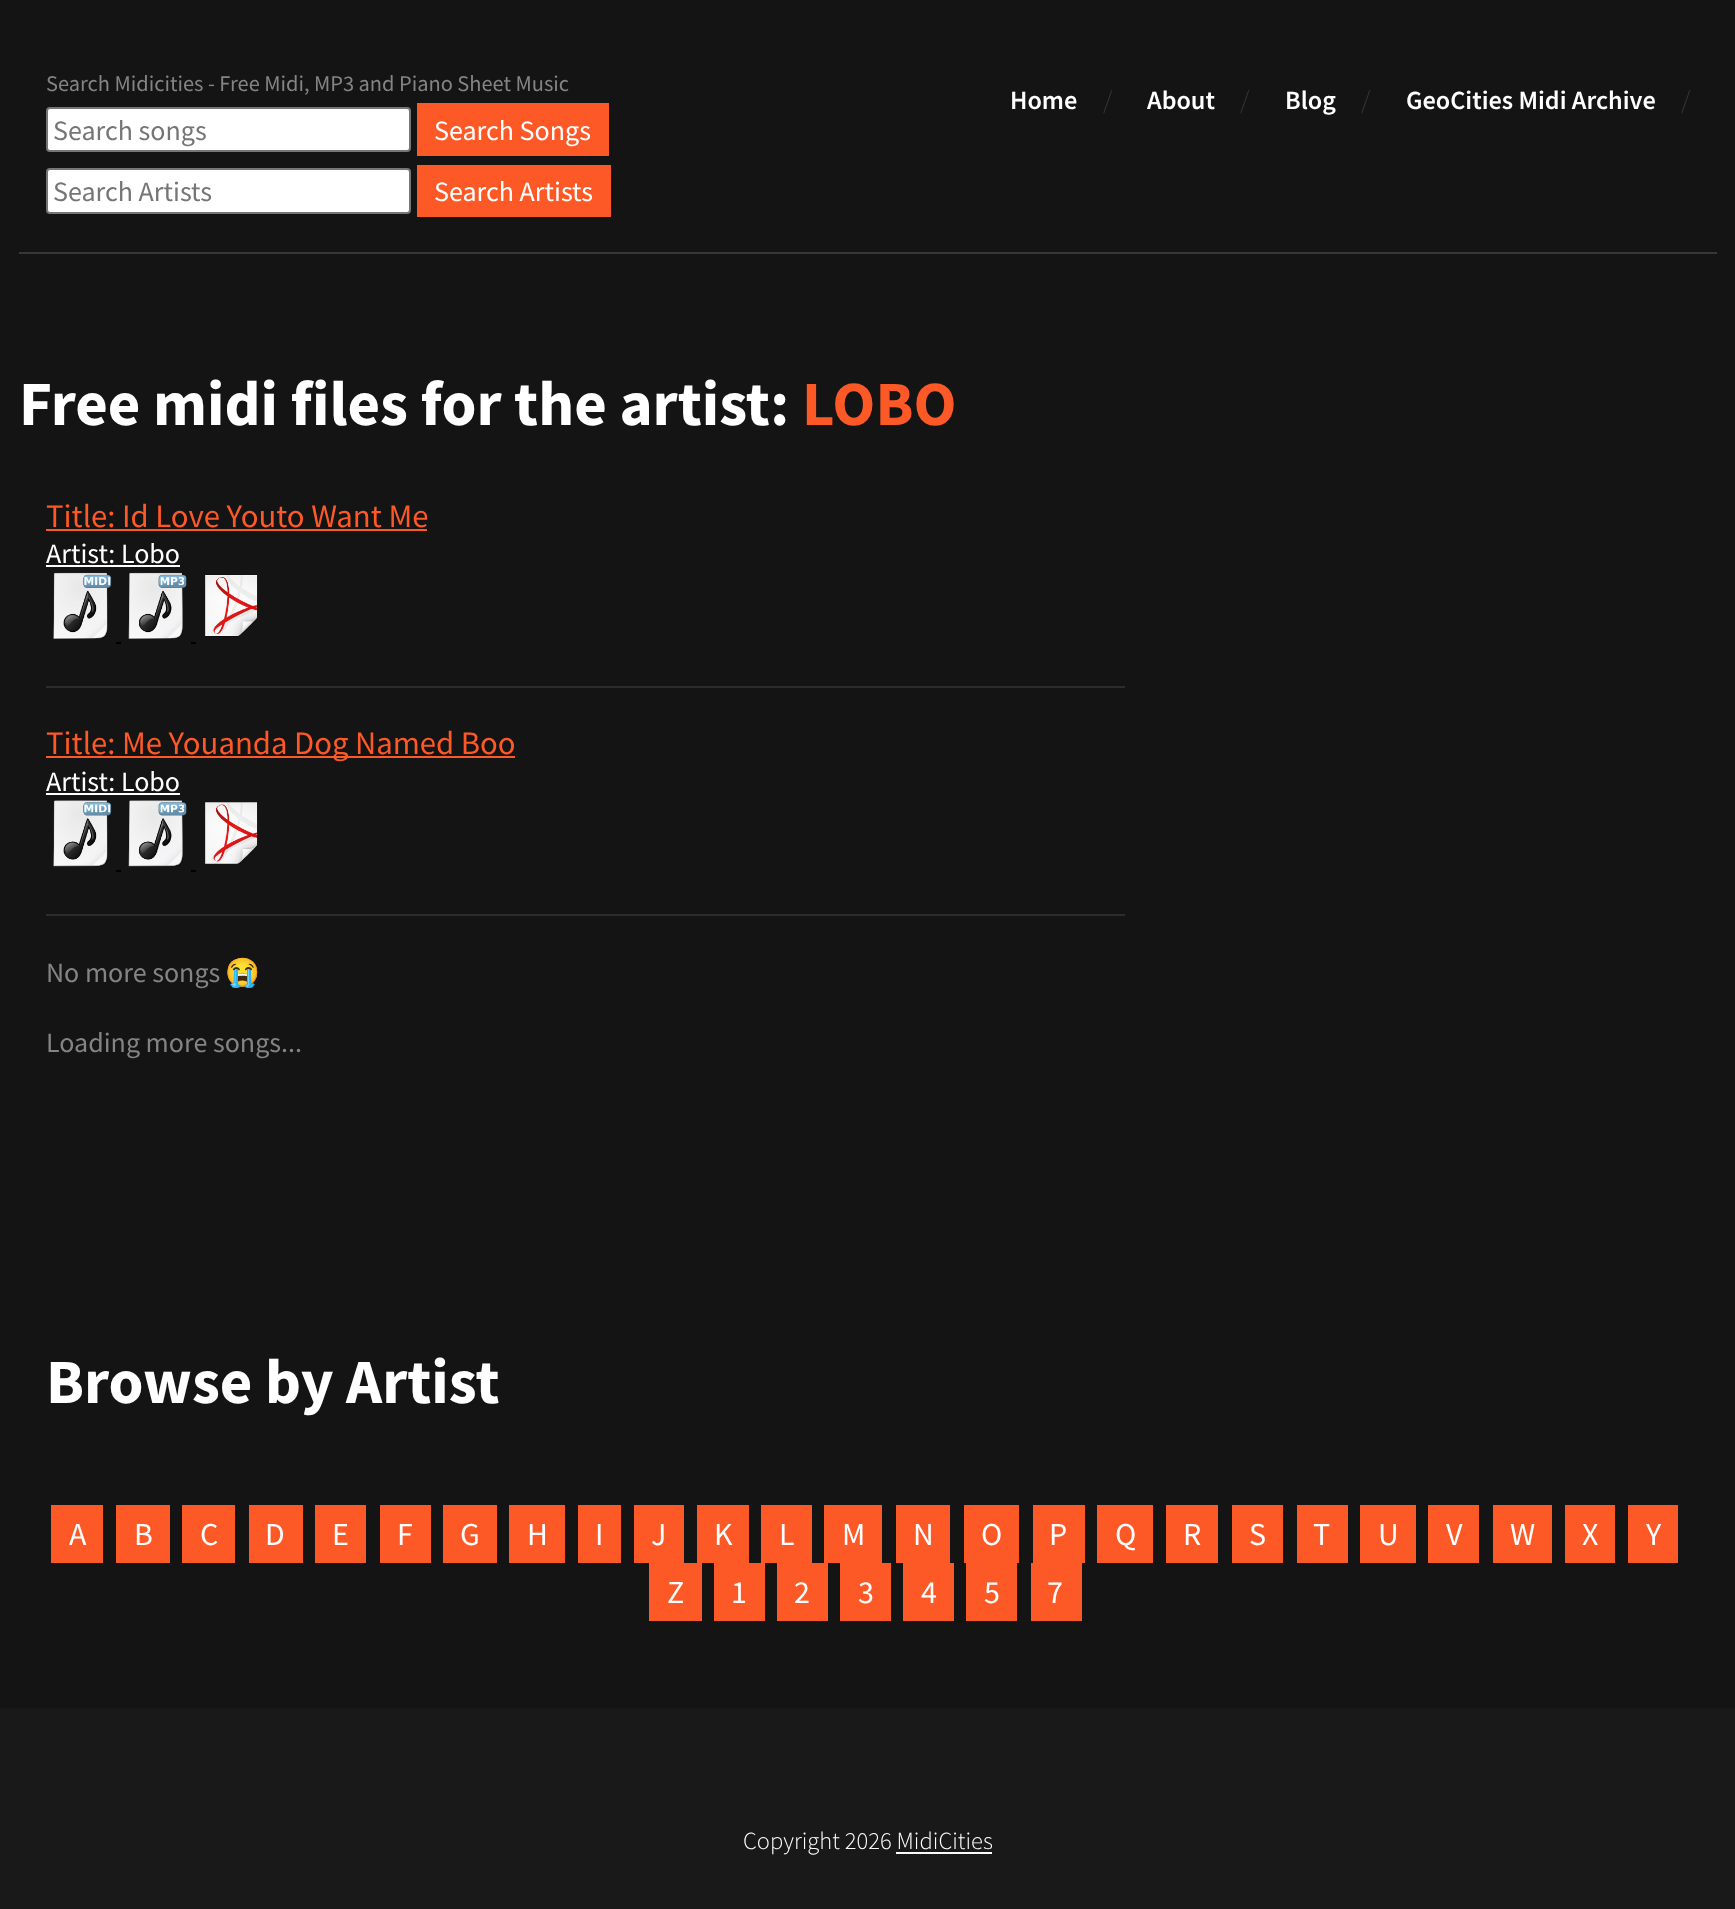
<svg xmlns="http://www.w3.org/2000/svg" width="1735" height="1909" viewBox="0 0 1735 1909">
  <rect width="100%" height="100%" fill="#141414"/>
  <path d="M19 252h1698v2H19z" fill="#373737"/>
  <rect x="47" y="108" width="363" height="43" rx="3" fill="#fff" stroke="#767676" stroke-width="2"/>
  <path d="M417 103h192v53H417z" fill="#fd5927"/>
  <rect x="47" y="169" width="363" height="44" rx="3" fill="#fff" stroke="#767676" stroke-width="2"/>
  <path d="M417 165h194v52H417z" fill="#fd5927"/>
  <path d="M46 686h1079v2H46z" fill="#2c2c2c"/>
  <path d="M46 529h381v2H46z" fill="#fd5927"/>
  <path d="M46 565h134v2H46z" fill="#fff"/>
  <image x="53" y="572" width="59" height="67" href="img/1.png"/>
  <image x="128" y="572" width="59" height="67" href="img/2.png"/>
  <image x="205" y="574" width="53" height="63" href="img/3.png"/>
  <path d="M116 642h5v2H116z" fill="#000"/>
  <path d="M191 642h5v2H191z" fill="#000"/>
  <path d="M46 914h1079v2H46z" fill="#2c2c2c"/>
  <path d="M46 756h469v2H46z" fill="#fd5927"/>
  <path d="M46 793h134v2H46z" fill="#fff"/>
  <image x="53" y="800" width="59" height="67" href="img/4.png"/>
  <image x="128" y="800" width="59" height="67" href="img/5.png"/>
  <image x="205" y="802" width="53" height="62" href="img/6.png"/>
  <path d="M116 870h5v2H116z" fill="#000"/>
  <path d="M191 870h5v2H191z" fill="#000"/>
  <path d="M51 1505h52v58H51z" fill="#fd5927"/>
  <path d="M116 1505h54v58H116z" fill="#fd5927"/>
  <path d="M182 1505h53v58H182z" fill="#fd5927"/>
  <path d="M249 1505h54v58H249z" fill="#fd5927"/>
  <path d="M315 1505h51v58H315z" fill="#fd5927"/>
  <path d="M380 1505h51v58H380z" fill="#fd5927"/>
  <path d="M443 1505h54v58H443z" fill="#fd5927"/>
  <path d="M509 1505h56v58H509z" fill="#fd5927"/>
  <path d="M578 1505h43v58H578z" fill="#fd5927"/>
  <path d="M634 1505h50v58H634z" fill="#fd5927"/>
  <path d="M697 1505h52v58H697z" fill="#fd5927"/>
  <path d="M761 1505h51v58H761z" fill="#fd5927"/>
  <path d="M824 1505h58v58H824z" fill="#fd5927"/>
  <path d="M896 1505h54v58H896z" fill="#fd5927"/>
  <path d="M964 1505h55v58H964z" fill="#fd5927"/>
  <path d="M1033 1505h52v58H1033z" fill="#fd5927"/>
  <path d="M1097 1505h56v58H1097z" fill="#fd5927"/>
  <path d="M1166 1505h52v58H1166z" fill="#fd5927"/>
  <path d="M1232 1505h51v58H1232z" fill="#fd5927"/>
  <path d="M1297 1505h51v58H1297z" fill="#fd5927"/>
  <path d="M1360 1505h56v58H1360z" fill="#fd5927"/>
  <path d="M1428 1505h51v58H1428z" fill="#fd5927"/>
  <path d="M1493 1505h59v58H1493z" fill="#fd5927"/>
  <path d="M1565 1505h50v58H1565z" fill="#fd5927"/>
  <path d="M1628 1505h50v58H1628z" fill="#fd5927"/>
  <path d="M649 1563h53v58H649z" fill="#fd5927"/>
  <path d="M714 1563h51v58H714z" fill="#fd5927"/>
  <path d="M777 1563h51v58H777z" fill="#fd5927"/>
  <path d="M840 1563h51v58H840z" fill="#fd5927"/>
  <path d="M903 1563h51v58H903z" fill="#fd5927"/>
  <path d="M966 1563h51v58H966z" fill="#fd5927"/>
  <path d="M1031 1563h51v58H1031z" fill="#fd5927"/>
  <path d="M0 1708h1735v201H0z" fill="#191919"/>
  <path d="M896 1852h96v2H896z" fill="#fff"/>
  <text x="46" y="91" font-family="Source Sans Pro" font-size="22.4" fill="#848484">Search Midicities - Free Midi, MP3 and Piano Sheet Music</text>
  <text x="53" y="140" font-family="Source Sans Pro" font-size="28" fill="#757575">Search songs</text>
  <text x="434" y="140" font-family="Source Sans Pro" font-size="28" fill="#fff">Search Songs</text>
  <text x="53" y="201" font-family="Source Sans Pro" font-size="28" fill="#757575">Search Artists</text>
  <text x="434" y="201" font-family="Source Sans Pro" font-size="28" fill="#fff">Search Artists</text>
  <text x="1010" y="109" font-family="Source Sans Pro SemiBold" font-size="26.25" font-weight="600" fill="#fff">Home</text>
  <text x="1103" y="109" font-family="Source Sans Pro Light" font-size="26.25" font-weight="300" fill="#373737">/</text>
  <text x="1147" y="109" font-family="Source Sans Pro SemiBold" font-size="26.25" font-weight="600" fill="#fff">About</text>
  <text x="1240" y="109" font-family="Source Sans Pro Light" font-size="26.25" font-weight="300" fill="#373737">/</text>
  <text x="1285" y="109" font-family="Source Sans Pro SemiBold" font-size="26.25" font-weight="600" fill="#fff">Blog</text>
  <text x="1361" y="109" font-family="Source Sans Pro Light" font-size="26.25" font-weight="300" fill="#373737">/</text>
  <text x="1406" y="109" font-family="Source Sans Pro SemiBold" font-size="26.25" font-weight="600" fill="#fff">GeoCities Midi Archive</text>
  <text x="1681" y="109" font-family="Source Sans Pro Light" font-size="26.25" font-weight="300" fill="#373737">/</text>
  <text x="19" y="425" font-family="Source Sans Pro" font-size="63" font-weight="bold" fill="#fff">Free midi files for the artist:</text>
  <text x="802" y="425" font-family="Source Sans Pro" font-size="63" font-weight="bold" fill="#fd5927">LOBO</text>
  <text x="46" y="527" font-family="Source Sans Pro" font-size="32.75" fill="#fd5927">Title: Id Love Youto Want Me</text>
  <text x="46" y="563" font-family="Source Sans Pro" font-size="28" fill="#fff">Artist: Lobo</text>
  <text x="46" y="754" font-family="Source Sans Pro" font-size="32.75" fill="#fd5927">Title: Me Youanda Dog Named Boo</text>
  <text x="46" y="791" font-family="Source Sans Pro" font-size="28" fill="#fff">Artist: Lobo</text>
  <text x="46" y="982" font-family="Source Sans Pro" font-size="28" fill="#848484">No more songs</text>
  <text x="225" y="982" font-family="Noto Color Emoji" font-size="28" fill="#848484">😭</text>
  <text x="46" y="1052" font-family="Source Sans Pro" font-size="28" fill="#848484">Loading more songs...</text>
  <text x="46" y="1403" font-family="Source Sans Pro" font-size="63" font-weight="bold" fill="#fff">Browse by Artist</text>
  <g font-family="Source Sans Pro" font-size="32" fill="#fff">
    <text x="69" y="1545">A</text>
    <text x="134" y="1545">B</text>
    <text x="200" y="1545">C</text>
    <text x="265" y="1545">D</text>
    <text x="332" y="1545">E</text>
    <text x="397" y="1545">F</text>
    <text x="460" y="1545">G</text>
    <text x="527" y="1545">H</text>
    <text x="595" y="1545">I</text>
    <text x="651" y="1545">J</text>
    <text x="714" y="1545">K</text>
    <text x="779" y="1545">L</text>
    <text x="842" y="1545">M</text>
    <text x="913" y="1545">N</text>
    <text x="981" y="1545">O</text>
    <text x="1049" y="1545">P</text>
    <text x="1115" y="1545">Q</text>
    <text x="1183" y="1545">R</text>
    <text x="1249" y="1545">S</text>
    <text x="1313" y="1545">T</text>
    <text x="1378" y="1545">U</text>
    <text x="1446" y="1545">V</text>
    <text x="1510" y="1545">W</text>
    <text x="1582" y="1545">X</text>
    <text x="1646" y="1545">Y</text>
    <text x="667" y="1603">Z</text>
    <text x="731" y="1603">1</text>
    <text x="794" y="1603">2</text>
    <text x="858" y="1603">3</text>
    <text x="921" y="1603">4</text>
    <text x="984" y="1603">5</text>
    <text x="1047" y="1603">7</text>
  </g>
  <text x="743" y="1849" font-family="Source Sans Pro Light" font-size="24.5" font-weight="300" fill="#fff">Copyright 2026 MidiCities</text>
</svg>
